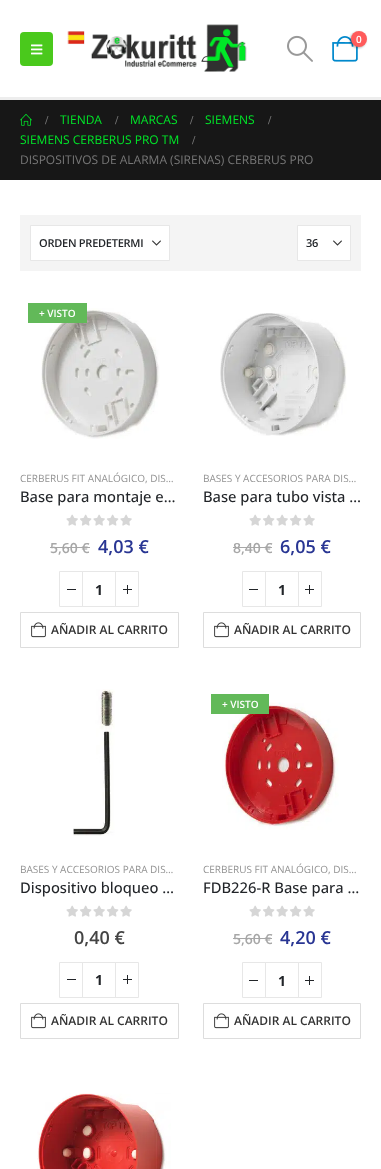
<svg xmlns="http://www.w3.org/2000/svg" width="381" height="1169" viewBox="0 0 381 1169">
  <rect width="100%" height="100%" fill="#fff"/>
  <path d="M0 97h381v3H0z" fill="#ededed"/>
  <rect x="20" y="32" width="33" height="34" rx="4" fill="#4ac91c"/>
  <image x="31" y="44" width="12" height="11" href="img/1.png"/>
  <image x="67" y="24" width="180" height="48" href="img/2.png"/>
  <image x="287" y="35" width="26" height="27" href="img/3.png"/>
  <image x="332" y="36" width="26" height="26" href="img/4.png"/>
  <rect x="350" y="32" width="16" height="16" rx="8" fill="#0000004d" filter="blur(1px)"/>
  <circle cx="359" cy="39" r="8" fill="#ff5b5b"/>
  <path d="M0 100h381v80H0z" fill="#171717"/>
  <image x="20" y="114" width="12" height="12" href="img/5.png"/>
  <path d="M20 215h341v56H20z" fill="#f4f4f4"/>
  <path d="M31 226h138v34H31z" fill="#fff"/>
  <image x="152" y="240" width="9" height="6" href="img/6.png"/>
  <path d="M30.5 225.5h139v35H30.5z" fill="none" stroke="#e7e7e7"/>
  <path d="M298 226h52v34H298z" fill="#fff"/>
  <image x="333" y="240" width="9" height="6" href="img/6.png"/>
  <path d="M297.5 225.5h53v35H297.5z" fill="none" stroke="#e7e7e7"/>
  <image x="41" y="308" width="119" height="131" href="img/7.png"/>
  <path d="M28 303h59v20H28z" fill="#62b959"/>
  <image x="66" y="514" width="66" height="12" href="img/8.png"/>
  <path d="M50 547h40v1H50z" fill="#a7a7a7"/>
  <path d="M82.5 571.5h33v35H82.5z" fill="none" stroke="#e7e7e7"/>
  <path d="M59.5 571.5h23v35H59.5z" fill="none" stroke="#e7e7e7"/>
  <path d="M67 589h9v1H67z" fill="#222529"/>
  <path d="M115.5 571.5h23v35H115.5z" fill="none" stroke="#e7e7e7"/>
  <path d="M123 589h9v1H123z" fill="#222529"/>
  <path d="M127 585h1v9H127z" fill="#222529"/>
  <path d="M20.5 612.5h158v35H20.5z" fill="none" stroke="#ddd"/>
  <image x="31" y="622" width="15" height="16" href="img/9.png"/>
  <image x="220" y="313" width="127" height="123" href="img/10.png"/>
  <image x="249" y="514" width="66" height="12" href="img/8.png"/>
  <path d="M233 547h39v1H233z" fill="#a7a7a7"/>
  <path d="M265.5 571.5h33v35H265.5z" fill="none" stroke="#e7e7e7"/>
  <path d="M242.5 571.5h23v35H242.5z" fill="none" stroke="#e7e7e7"/>
  <path d="M249 589h9v1H249z" fill="#222529"/>
  <path d="M298.5 571.5h23v35H298.5z" fill="none" stroke="#e7e7e7"/>
  <path d="M305 589h9v1H305z" fill="#222529"/>
  <path d="M309 585h1v9H309z" fill="#222529"/>
  <path d="M203.5 612.5h157v35H203.5z" fill="none" stroke="#ddd"/>
  <image x="214" y="622" width="15" height="16" href="img/9.png"/>
  <image x="73" y="689" width="42" height="147" href="img/11.png"/>
  <image x="66" y="905" width="66" height="12" href="img/8.png"/>
  <path d="M82.5 962.5h33v35H82.5z" fill="none" stroke="#e7e7e7"/>
  <path d="M59.5 962.5h23v35H59.5z" fill="none" stroke="#e7e7e7"/>
  <path d="M67 979h9v1H67z" fill="#222529"/>
  <path d="M115.5 962.5h23v35H115.5z" fill="none" stroke="#e7e7e7"/>
  <path d="M123 979h9v1H123z" fill="#222529"/>
  <path d="M127 975h1v9H127z" fill="#222529"/>
  <path d="M20.5 1003.5h158v35H20.5z" fill="none" stroke="#ddd"/>
  <image x="31" y="1013" width="15" height="16" href="img/9.png"/>
  <image x="222" y="702" width="117" height="128" href="img/12.png"/>
  <path d="M211 694h58v20H211z" fill="#62b959"/>
  <image x="249" y="905" width="66" height="12" href="img/8.png"/>
  <path d="M233 938h39v1H233z" fill="#a7a7a7"/>
  <path d="M265.5 962.5h33v35H265.5z" fill="none" stroke="#e7e7e7"/>
  <path d="M242.5 962.5h23v35H242.5z" fill="none" stroke="#e7e7e7"/>
  <path d="M249 980h9v1H249z" fill="#222529"/>
  <path d="M298.5 962.5h23v35H298.5z" fill="none" stroke="#e7e7e7"/>
  <path d="M305 980h9v1H305z" fill="#222529"/>
  <path d="M309 976h1v9H309z" fill="#222529"/>
  <path d="M203.5 1003.5h157v35H203.5z" fill="none" stroke="#ddd"/>
  <image x="214" y="1013" width="15" height="16" href="img/9.png"/>
  <image x="37" y="1093" width="134" height="76" href="img/13.png"/>
  <text x="356" y="43" font-family="Open Sans" font-size="10" font-weight="600" fill="#fff">0</text>
  <text x="45" y="124" font-family="Liberation Serif" font-size="12" font-weight="bold" fill="#777">/</text>
  <text x="60" y="124" font-family="Open Sans" font-size="12" fill="#00e829">TIENDA</text>
  <text x="115" y="124" font-family="Liberation Serif" font-size="12" font-weight="bold" fill="#777">/</text>
  <text x="130" y="124" font-family="Open Sans" font-size="12" fill="#00e829">MARCAS</text>
  <text x="190" y="124" font-family="Liberation Serif" font-size="12" font-weight="bold" fill="#777">/</text>
  <text x="205" y="124" font-family="Open Sans" font-size="12" fill="#00e829">SIEMENS</text>
  <text x="268" y="124" font-family="Liberation Serif" font-size="12" font-weight="bold" fill="#777">/</text>
  <text x="20" y="144" font-family="Open Sans" font-size="12" fill="#00e829">SIEMENS CERBERUS PRO TM</text>
  <text x="192" y="144" font-family="Liberation Serif" font-size="12" font-weight="bold" fill="#777">/</text>
  <text x="20" y="164" font-family="Open Sans" font-size="12" fill="#777">DISPOSITIVOS DE ALARMA (SIRENAS) CERBERUS PRO</text>
  <g font-family="Open Sans" font-size="11" font-weight="600" letter-spacing="-0.25" fill="#222529">
    <text x="39" y="247">ORDEN PREDETERMI</text>
    <text x="306" y="247">36</text>
  </g>
  <text x="39" y="317" font-family="Open Sans" font-size="10" font-weight="600" fill="#fff">+ VISTO</text>
  <text x="20" y="482" font-family="Open Sans" font-size="10" fill="#929292">CERBERUS FIT ANALÓGICO, DIS…</text>
  <text x="20" y="502" font-family="Open Sans" font-size="14.75" font-weight="500" fill="#222529">Base para montaje e…</text>
  <text x="50" y="553" font-family="Open Sans" font-size="14" font-weight="600" fill="#a7a7a7">5,60 €</text>
  <text x="98" y="553" font-family="Open Sans" font-size="18" font-weight="600" fill="#283593">4,03 €</text>
  <text x="95" y="595" font-family="Open Sans" font-size="14" font-weight="bold" fill="#222529">1</text>
  <text x="51" y="634" font-family="Open Sans" font-size="12" font-weight="600" fill="#333">AÑADIR AL CARRITO</text>
  <text x="203" y="482" font-family="Open Sans" font-size="10" fill="#929292">BASES Y ACCESORIOS PARA DIS…</text>
  <text x="203" y="502" font-family="Open Sans" font-size="14.75" font-weight="500" fill="#222529">Base para tubo vista …</text>
  <text x="233" y="553" font-family="Open Sans" font-size="14" font-weight="600" fill="#a7a7a7">8,40 €</text>
  <text x="280" y="553" font-family="Open Sans" font-size="18" font-weight="600" fill="#283593">6,05 €</text>
  <text x="278" y="595" font-family="Open Sans" font-size="14" font-weight="bold" fill="#222529">1</text>
  <text x="234" y="634" font-family="Open Sans" font-size="12" font-weight="600" fill="#333">AÑADIR AL CARRITO</text>
  <text x="20" y="873" font-family="Open Sans" font-size="10" fill="#929292">BASES Y ACCESORIOS PARA DIS…</text>
  <text x="20" y="893" font-family="Open Sans" font-size="14.75" font-weight="500" fill="#222529">Dispositivo bloqueo …</text>
  <text x="74" y="944" font-family="Open Sans" font-size="18" font-weight="600" fill="#444">0,40 €</text>
  <text x="95" y="985" font-family="Open Sans" font-size="14" font-weight="bold" fill="#222529">1</text>
  <text x="51" y="1025" font-family="Open Sans" font-size="12" font-weight="600" fill="#333">AÑADIR AL CARRITO</text>
  <text x="222" y="708" font-family="Open Sans" font-size="10" font-weight="600" fill="#fff">+ VISTO</text>
  <text x="203" y="873" font-family="Open Sans" font-size="10" fill="#929292">CERBERUS FIT ANALÓGICO, DIS…</text>
  <text x="203" y="893" font-family="Open Sans" font-size="14.75" font-weight="500" fill="#222529">FDB226-R Base para …</text>
  <text x="233" y="944" font-family="Open Sans" font-size="14" font-weight="600" fill="#a7a7a7">5,60 €</text>
  <text x="280" y="944" font-family="Open Sans" font-size="18" font-weight="600" fill="#283593">4,20 €</text>
  <text x="278" y="986" font-family="Open Sans" font-size="14" font-weight="bold" fill="#222529">1</text>
  <text x="234" y="1025" font-family="Open Sans" font-size="12" font-weight="600" fill="#333">AÑADIR AL CARRITO</text>
</svg>
